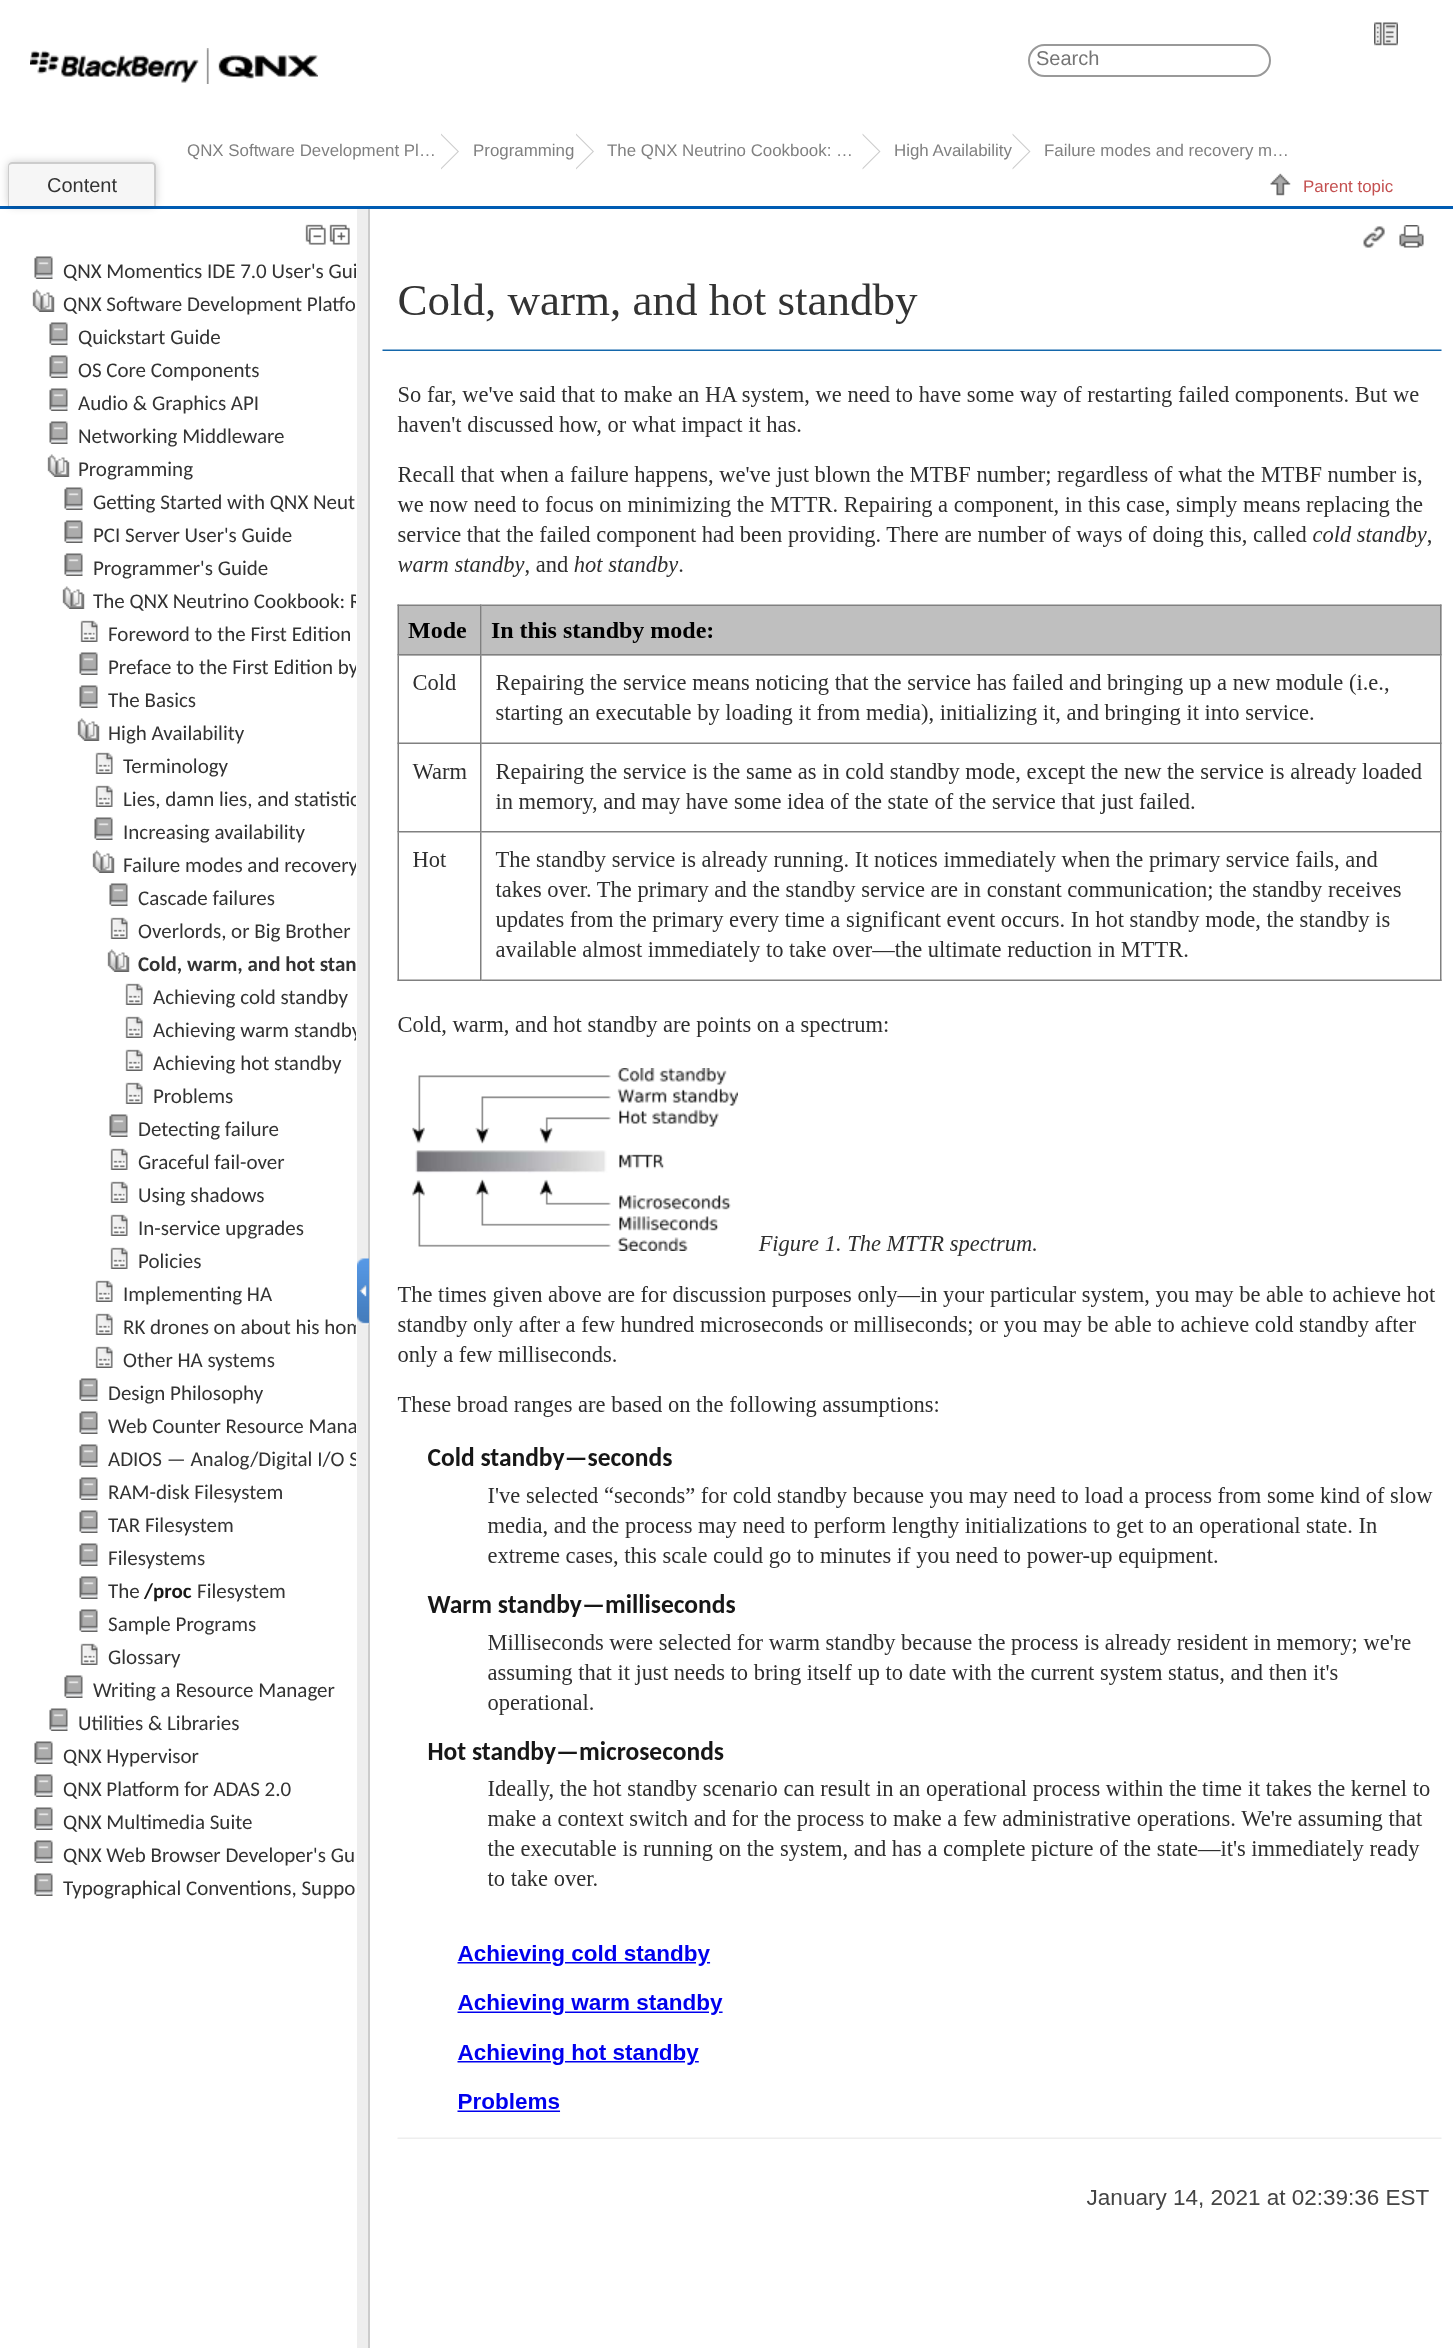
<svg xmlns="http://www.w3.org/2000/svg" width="1453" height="2348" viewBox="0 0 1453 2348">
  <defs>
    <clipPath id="clip1"><path d="M2 210h354v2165H2z"/></clipPath>
  </defs>
  <rect width="100%" height="100%" fill="#fff"/>
  <image x="1374" y="22" width="24" height="24" href="img/1.png"/>
  <image x="30" y="48" width="288" height="36" href="img/2.png"/>
  <rect x="1029" y="45" width="241" height="31" rx="15.5" fill="none" stroke="#999" stroke-width="2"/>
  <path d="M0 206h1453v3H0z" fill="#005cb3"/>
  <rect x="8" y="162" width="148" height="44" rx="5" fill="#00000033" filter="blur(4px)"/>
  <path d="M13 162H151C154 162 156 164 156 167V206H8V167C8 164 10 162 13 162Z" fill="#f6f6f6"/>
  <path d="M12 162H152C154 162 156 164 156 166V206H8V166C8 164 10 162 12 162ZM12 164H152C153 164 154 165 154 166V206H9V166C9 165 10 164 12 164Z" fill="#ccc" fill-rule="evenodd"/>
  <path d="M441 169.5V133.5L459 151.5Z" fill="#ccc"/>
  <path d="M439.5 169.5V133.5L457.5 151.5Z" fill="#fff"/>
  <path d="M576 169.5V133.5L594 151.5Z" fill="#ccc"/>
  <path d="M574.5 169.5V133.5L592.5 151.5Z" fill="#fff"/>
  <path d="M862.5 169.5V133.5L880.5 151.5Z" fill="#ccc"/>
  <path d="M861 169.5V133.5L879 151.5Z" fill="#fff"/>
  <path d="M1012.5 169.5V133.5L1030.5 151.5Z" fill="#ccc"/>
  <path d="M1011 169.5V133.5L1029 151.5Z" fill="#fff"/>
  <image x="1270" y="173" width="21" height="23" href="img/3.png"/>
  <image x="305" y="224" width="21" height="21" href="img/4.png"/>
  <image x="329" y="224" width="21" height="21" href="img/5.png"/>
  <image x="34" y="256" width="19" height="23" href="img/6.png"/>
  <image x="32" y="289" width="23" height="23" href="img/7.png"/>
  <image x="49" y="322" width="19" height="23" href="img/6.png"/>
  <image x="49" y="355" width="19" height="23" href="img/6.png"/>
  <image x="49" y="388" width="19" height="23" href="img/6.png"/>
  <image x="49" y="421" width="19" height="23" href="img/6.png"/>
  <image x="47" y="454" width="23" height="23" href="img/7.png"/>
  <image x="64" y="487" width="19" height="23" href="img/6.png"/>
  <image x="64" y="520" width="19" height="23" href="img/6.png"/>
  <image x="64" y="553" width="19" height="23" href="img/6.png"/>
  <image x="62" y="586" width="23" height="23" href="img/7.png"/>
  <image x="80" y="620" width="18" height="22" href="img/8.png"/>
  <image x="79" y="652" width="19" height="23" href="img/6.png"/>
  <image x="79" y="685" width="19" height="23" href="img/6.png"/>
  <image x="77" y="718" width="23" height="23" href="img/7.png"/>
  <image x="95" y="752" width="18" height="22" href="img/8.png"/>
  <image x="95" y="785" width="18" height="22" href="img/8.png"/>
  <image x="94" y="817" width="19" height="23" href="img/6.png"/>
  <image x="92" y="850" width="23" height="23" href="img/7.png"/>
  <image x="109" y="883" width="19" height="23" href="img/6.png"/>
  <image x="110" y="917" width="18" height="22" href="img/8.png"/>
  <image x="107" y="949" width="23" height="23" href="img/7.png"/>
  <image x="125" y="983" width="18" height="22" href="img/8.png"/>
  <image x="125" y="1016" width="18" height="22" href="img/8.png"/>
  <image x="125" y="1049" width="18" height="22" href="img/8.png"/>
  <image x="125" y="1082" width="18" height="22" href="img/8.png"/>
  <image x="109" y="1114" width="19" height="23" href="img/6.png"/>
  <image x="110" y="1148" width="18" height="22" href="img/8.png"/>
  <image x="110" y="1181" width="18" height="22" href="img/8.png"/>
  <image x="110" y="1214" width="18" height="22" href="img/8.png"/>
  <image x="110" y="1247" width="18" height="22" href="img/8.png"/>
  <image x="95" y="1280" width="18" height="22" href="img/8.png"/>
  <image x="95" y="1313" width="18" height="22" href="img/8.png"/>
  <image x="95" y="1346" width="18" height="22" href="img/8.png"/>
  <image x="79" y="1378" width="19" height="23" href="img/6.png"/>
  <image x="79" y="1411" width="19" height="23" href="img/6.png"/>
  <image x="79" y="1444" width="19" height="23" href="img/6.png"/>
  <image x="79" y="1477" width="19" height="23" href="img/6.png"/>
  <image x="79" y="1510" width="19" height="23" href="img/6.png"/>
  <image x="79" y="1543" width="19" height="23" href="img/6.png"/>
  <image x="79" y="1576" width="19" height="23" href="img/6.png"/>
  <image x="79" y="1609" width="19" height="23" href="img/6.png"/>
  <image x="80" y="1643" width="18" height="22" href="img/8.png"/>
  <image x="64" y="1675" width="19" height="23" href="img/6.png"/>
  <image x="49" y="1708" width="19" height="23" href="img/6.png"/>
  <image x="34" y="1741" width="19" height="23" href="img/6.png"/>
  <image x="34" y="1774" width="19" height="23" href="img/6.png"/>
  <image x="34" y="1807" width="19" height="23" href="img/6.png"/>
  <image x="34" y="1840" width="19" height="23" href="img/6.png"/>
  <image x="34" y="1873" width="19" height="23" href="img/6.png"/>
  <path d="M357 209h11v2139H357z" fill="#eee"/>
  <path d="M368 209h2v2139H368z" fill="#ccc"/>
  <image x="357" y="1258" width="12" height="67" href="img/9.png"/>
  <image x="382" y="225" width="1060" height="1985" href="img/10.png"/>
  <text x="1036" y="65" font-family="Liberation Sans" font-size="20" fill="#757575">Search</text>
  <text x="47" y="192" font-family="Liberation Sans" font-size="20" fill="#333">Content</text>
  <g font-family="Liberation Sans" font-size="16.9" fill="#808080">
    <text x="187" y="156">QNX Software Development Pl…</text>
    <text x="473" y="156">Programming</text>
    <text x="607" y="156">The QNX Neutrino Cookbook: …</text>
    <text x="894" y="156">High Availability</text>
    <text x="1044" y="156">Failure modes and recovery m…</text>
  </g>
  <text x="1303" y="192" font-family="Liberation Sans" font-size="16.9" fill="#c45050">Parent topic</text>
  <g clip-path="url(#clip1)">
    <text x="63" y="278" font-family="Carlito" font-size="21" fill="#333">QNX Momentics IDE 7.0 User's Gui</text>
  </g>
  <g font-family="Carlito" font-size="21" fill="#333">
    <text x="63" y="311">QNX Software Development Platfo</text>
    <text x="78" y="344">Quickstart Guide</text>
    <text x="78" y="377">OS Core Components</text>
    <text x="78" y="410">Audio &amp; Graphics API</text>
    <text x="78" y="443">Networking Middleware</text>
    <text x="78" y="476">Programming</text>
    <text x="93" y="509">Getting Started with QNX Neut</text>
    <text x="93" y="542">PCI Server User's Guide</text>
    <text x="93" y="575">Programmer's Guide</text>
  </g>
  <g clip-path="url(#clip1)">
    <text x="93" y="608" font-family="Carlito" font-size="21" fill="#333">The QNX Neutrino Cookbook: R</text>
  </g>
  <text x="108" y="641" font-family="Carlito" font-size="21" fill="#333">Foreword to the First Edition</text>
  <g clip-path="url(#clip1)">
    <text x="108" y="674" font-family="Carlito" font-size="21" fill="#333">Preface to the First Edition by</text>
  </g>
  <g font-family="Carlito" font-size="21" fill="#333">
    <text x="108" y="707">The Basics</text>
    <text x="108" y="740">High Availability</text>
    <text x="123" y="773">Terminology</text>
  </g>
  <g clip-path="url(#clip1)">
    <text x="123" y="806" font-family="Carlito" font-size="21" fill="#333">Lies, damn lies, and statistic</text>
  </g>
  <text x="123" y="839" font-family="Carlito" font-size="21" fill="#333">Increasing availability</text>
  <g clip-path="url(#clip1)">
    <text x="123" y="872" font-family="Carlito" font-size="21" fill="#333">Failure modes and recovery</text>
  </g>
  <g font-family="Carlito" font-size="21" fill="#333">
    <text x="138" y="905">Cascade failures</text>
    <text x="138" y="938">Overlords, or Big Brother</text>
  </g>
  <text x="138" y="971" font-family="Carlito" font-size="21" font-weight="bold" fill="#333">Cold, warm, and hot stan</text>
  <text x="153" y="1004" font-family="Carlito" font-size="21" fill="#333">Achieving cold standby</text>
  <g clip-path="url(#clip1)">
    <text x="153" y="1037" font-family="Carlito" font-size="21" fill="#333">Achieving warm standby</text>
  </g>
  <g font-family="Carlito" font-size="21" fill="#333">
    <text x="153" y="1070">Achieving hot standby</text>
    <text x="153" y="1103">Problems</text>
    <text x="138" y="1136">Detecting failure</text>
    <text x="138" y="1169">Graceful fail-over</text>
    <text x="138" y="1202">Using shadows</text>
    <text x="138" y="1235">In-service upgrades</text>
    <text x="138" y="1268">Policies</text>
    <text x="123" y="1301">Implementing HA</text>
  </g>
  <g clip-path="url(#clip1)">
    <text x="123" y="1334" font-family="Carlito" font-size="21" fill="#333">RK drones on about his hom</text>
  </g>
  <g font-family="Carlito" font-size="21" fill="#333">
    <text x="123" y="1367">Other HA systems</text>
    <text x="108" y="1400">Design Philosophy</text>
  </g>
  <g clip-path="url(#clip1)">
    <g font-family="Carlito" font-size="21" fill="#333">
      <text x="108" y="1433">Web Counter Resource Mana</text>
      <text x="108" y="1466">ADIOS — Analog/Digital I/O S</text>
    </g>
  </g>
  <g font-family="Carlito" font-size="21" fill="#333">
    <text x="108" y="1499">RAM-disk Filesystem</text>
    <text x="108" y="1532">TAR Filesystem</text>
    <text x="108" y="1565">Filesystems</text>
    <text x="108" y="1598">The</text>
  </g>
  <text x="144" y="1598" font-family="Carlito" font-size="21" font-weight="bold" fill="#171717">/proc</text>
  <g font-family="Carlito" font-size="21" fill="#333">
    <text x="197" y="1598">Filesystem</text>
    <text x="108" y="1631">Sample Programs</text>
    <text x="108" y="1664">Glossary</text>
    <text x="93" y="1697">Writing a Resource Manager</text>
    <text x="78" y="1730">Utilities &amp; Libraries</text>
    <text x="63" y="1763">QNX Hypervisor</text>
    <text x="63" y="1796">QNX Platform for ADAS 2.0</text>
    <text x="63" y="1829">QNX Multimedia Suite</text>
    <text x="63" y="1862">QNX Web Browser Developer's Gu</text>
    <text x="63" y="1895">Typographical Conventions, Suppo</text>
  </g>
</svg>
